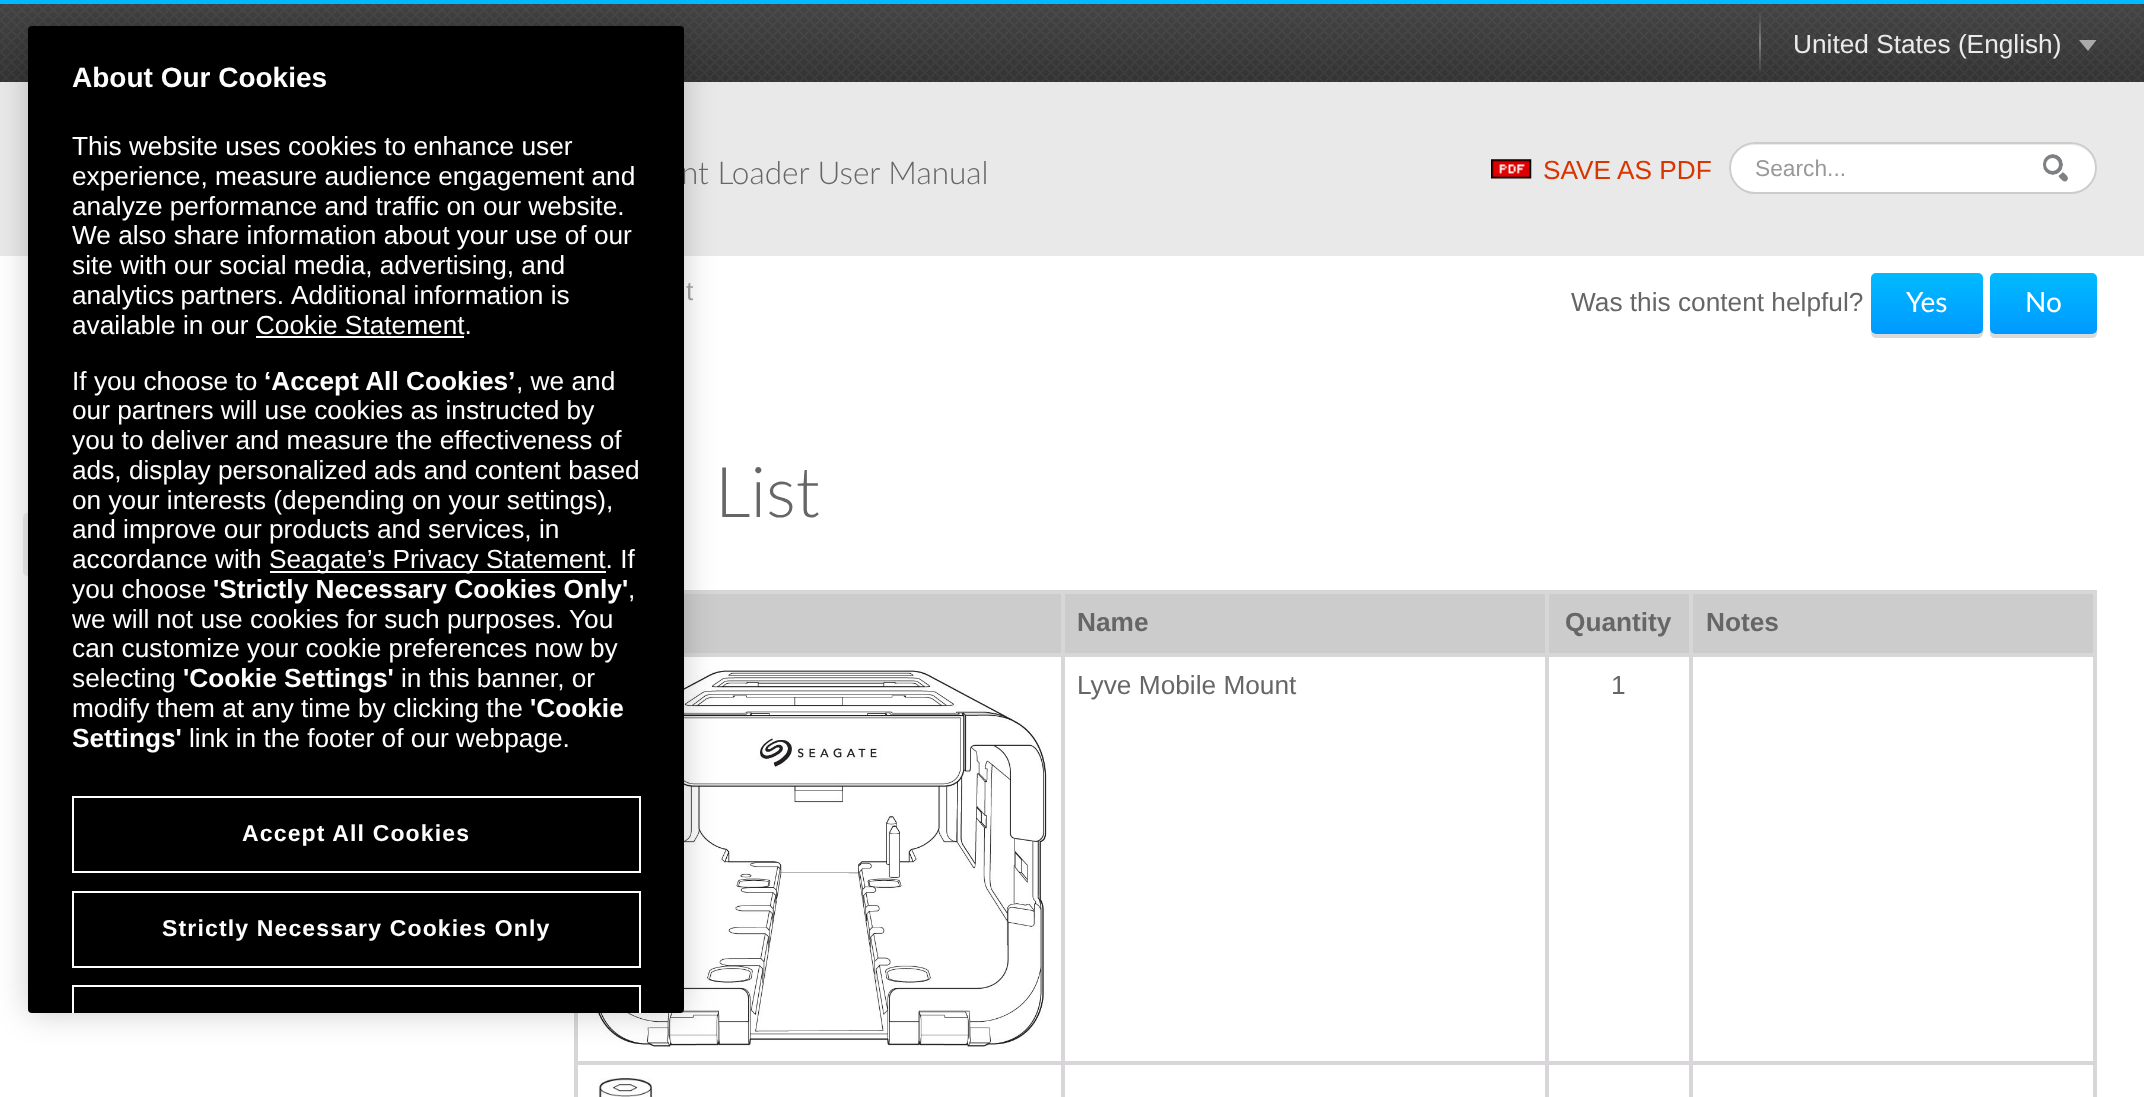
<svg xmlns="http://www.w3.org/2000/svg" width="2144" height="1097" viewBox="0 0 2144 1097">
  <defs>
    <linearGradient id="g1" gradientUnits="userSpaceOnUse" x1="1927" y1="273" x2="1927" y2="334"><stop offset="0" stop-color="#0bf"/><stop offset="1" stop-color="#09f"/></linearGradient>
    <linearGradient id="g2" gradientUnits="userSpaceOnUse" x1="2043" y1="273" x2="2043" y2="334"><stop offset="0" stop-color="#0bf"/><stop offset="1" stop-color="#09f"/></linearGradient>
    <clipPath id="clip1"><path d="M49 256h644v71H49z"/></clipPath>
  </defs>
  <rect width="100%" height="100%" fill="#fff"/>
  <image x="0" y="4" width="2144" height="78" href="img/1.png"/>
  <path d="M0 0h2144v4H0z" fill="#0bf"/>
  <path d="M0 82h2144v174H0z" fill="#e9e9e9"/>
  <path d="M28 513H520V576H28C25 576 23 574 23 571V518C23 515 25 513 28 513Z" fill="#eee"/>
  <path d="M684 590h1413v4H684z" fill="#d9d6d9"/>
  <path d="M574 1013h4v84H574z" fill="#d9d6d9"/>
  <path d="M684 594h1409v59H684z" fill="#ccc"/>
  <path d="M2093 590h4v507H2093z" fill="#d9d6d9"/>
  <path d="M1689 1061h4v36H1689z" fill="#d9d6d9"/>
  <path d="M1689 1061h408v4H1689z" fill="#d9d6d9"/>
  <path d="M1689 653h4v411H1689z" fill="#d9d6d9"/>
  <path d="M1689 653h408v4H1689z" fill="#d9d6d9"/>
  <path d="M1689 590h4v66H1689z" fill="#d9d6d9"/>
  <path d="M1545 1061h4v36H1545z" fill="#d9d6d9"/>
  <path d="M1545 1061h147v4H1545z" fill="#d9d6d9"/>
  <path d="M1545 653h4v411H1545z" fill="#d9d6d9"/>
  <path d="M1545 653h147v4H1545z" fill="#d9d6d9"/>
  <path d="M1545 590h4v66H1545z" fill="#d9d6d9"/>
  <path d="M1061 1061h4v36H1061z" fill="#d9d6d9"/>
  <path d="M1061 1061h488v4H1061z" fill="#d9d6d9"/>
  <path d="M1061 653h4v411H1061z" fill="#d9d6d9"/>
  <path d="M1061 653h488v4H1061z" fill="#d9d6d9"/>
  <path d="M1061 590h4v66H1061z" fill="#d9d6d9"/>
  <path d="M684 653h380v4H684z" fill="#d9d6d9"/>
  <path d="M574 1061h490v4H574z" fill="#d9d6d9"/>
  <image x="591" y="670" width="456" height="377" href="img/3.png"/>
  <rect x="28" y="26" width="656" height="987" rx="4" fill="#00000033" filter="blur(16px)"/>
  <path d="M2079 40H2096.5L2088 51Z" fill="#aaa"/>
  <image x="1491" y="159" width="41" height="20" href="img/2.png"/>
  <rect x="1729" y="142" width="368" height="52" rx="26" fill="#fff"/>
  <path d="M1755 145H2070C2084 145 2095 156 2095 169C2095 156 2084 144 2070 144H1756C1742 144 1731 156 1731 169C1731 156 1742 145 1755 145Z" fill="#ececec"/>
  <rect x="1730" y="143" width="366" height="50" rx="25" fill="none" stroke="#ccc" stroke-width="2"/>
  <circle cx="2052.5" cy="164.5" r="8.5" fill="none" stroke="#7f8083" stroke-width="4"/>
  <path d="M2059.5 173C2061.5 171 2064 172.5 2065.5 174.5C2067.5 176 2069 178.5 2067 180.5C2065 182.5 2062.5 181 2061 179C2059 177.5 2057.5 175 2059.5 173Z" fill="#7f8083"/>
  <rect x="2042" y="153" width="22" height="23" rx="11" fill="none" stroke="#fff" stroke-width="2"/>
  <path d="M1871 331C1871 334 1872 338 1876 338H1978C1985 338 1983 328 1983 324V280V329C1983 332 1980 334 1978 334H1876C1874 334 1872 333 1871 331Z" fill="#d9d9d9"/>
  <rect x="1871" y="273" width="112" height="61" rx="5" fill="url(#g1)"/>
  <path d="M1990 331V333C1990 336 1992 338 1995 338H2092C2095 338 2097 336 2097 333V282L2096 280V329C2096 332 2094 334 2091 334H1995C1993 334 1991 333 1990 331Z" fill="#d9d9d9"/>
  <rect x="1990" y="273" width="107" height="61" rx="5" fill="url(#g2)"/>
  <image x="598" y="1078" width="58" height="19" href="img/4.png"/>
  <text x="1793" y="53" font-family="Liberation Sans" font-size="26.25" fill="#ebebeb">United States (English)</text>
  <text x="681" y="184" font-family="Lato" font-size="31.5" font-weight="300" fill="#666">nt Loader User Manual</text>
  <rect x="28" y="26" width="656" height="987" rx="4" fill="#000"/>
  <path d="M72 985V1013H74V987H639V1013H641V985Z" fill="#fff"/>
  <path d="M73 892h567v75H73z" fill="none" stroke="#fff" stroke-width="2"/>
  <text x="162" y="936" font-family="Liberation Sans" font-size="23" font-weight="bold" letter-spacing="1.15" fill="#fff">Strictly Necessary Cookies Only</text>
  <path d="M73 797h567v75H73z" fill="none" stroke="#fff" stroke-width="2"/>
  <text x="242" y="841" font-family="Liberation Sans" font-size="23" font-weight="bold" letter-spacing="1.15" fill="#fff">Accept All Cookies</text>
  <text x="189" y="747" font-family="Liberation Sans" font-size="26.25" fill="#fff">link in the footer of our webpage.</text>
  <g font-family="Liberation Sans" font-size="26.25" font-weight="bold" fill="#fff">
    <text x="72" y="747">Settings'</text>
    <text x="530" y="717">'Cookie</text>
  </g>
  <g font-family="Liberation Sans" font-size="26.25" fill="#fff">
    <text x="72" y="717">modify them at any time by clicking the</text>
    <text x="401" y="687">in this banner, or</text>
  </g>
  <text x="183" y="687" font-family="Liberation Sans" font-size="26.25" font-weight="bold" fill="#fff">'Cookie Settings'</text>
  <g font-family="Liberation Sans" font-size="26.25" fill="#fff">
    <text x="72" y="687">selecting</text>
    <text x="72" y="657">can customize your cookie preferences now by</text>
    <text x="569" y="628">You</text>
    <text x="72" y="628">we will not use cookies for such purposes.</text>
    <text x="628" y="598">,</text>
  </g>
  <text x="213" y="598" font-family="Liberation Sans" font-size="26.25" font-weight="bold" fill="#fff">'Strictly Necessary Cookies Only'</text>
  <text x="72" y="598" font-family="Liberation Sans" font-size="26.25" fill="#fff">you choose</text>
  <path d="M270 571h336v2H270z" fill="#fff"/>
  <g font-family="Liberation Sans" font-size="26.25" fill="#fff">
    <text x="269" y="568">Seagate’s Privacy Statement. If</text>
    <text x="72" y="568">accordance with</text>
    <text x="72" y="538">and improve our products and services, in</text>
    <text x="72" y="509">on your interests (depending on your settings),</text>
    <text x="72" y="479">ads, display personalized ads and content based</text>
    <text x="72" y="449">you to deliver and measure the effectiveness of</text>
    <text x="72" y="419">our partners will use cookies as instructed by</text>
    <text x="516" y="390">, we and</text>
  </g>
  <text x="264" y="390" font-family="Liberation Sans" font-size="26.25" font-weight="bold" fill="#fff">‘Accept All Cookies’</text>
  <text x="72" y="390" font-family="Liberation Sans" font-size="26.25" fill="#fff">If you choose to</text>
  <path d="M256 336h208v2H256z" fill="#fff"/>
  <g font-family="Liberation Sans" font-size="26.25" fill="#fff">
    <text x="72" y="334">available in our Cookie Statement.</text>
    <text x="291" y="304">Additional information is</text>
    <text x="72" y="304" word-spacing="-1">analytics partners.</text>
    <text x="72" y="274">site with our social media, advertising, and</text>
    <text x="72" y="244">We also share information about your use of our</text>
    <text x="72" y="215">analyze performance and traffic on our website.</text>
    <text x="72" y="185">experience, measure audience engagement and</text>
    <text x="72" y="155">This website uses cookies to enhance user</text>
  </g>
  <text x="72" y="87" font-family="Liberation Sans" font-size="28" font-weight="bold" fill="#fff">About Our Cookies</text>
  <text x="1543" y="179" font-family="Liberation Sans" font-size="26.25" fill="#d83500">SAVE AS PDF</text>
  <text x="1755" y="176" font-family="Liberation Sans" font-size="22.75" fill="#999">Search...</text>
  <g clip-path="url(#clip1)">
    <text x="686" y="300" font-family="Liberation Sans" font-size="26.25" fill="#999">t</text>
  </g>
  <text x="1571" y="311" font-family="Liberation Sans" font-size="26.25" fill="#666">Was this content helpful?</text>
  <g font-family="Lato" font-size="28" fill="#fff">
    <text x="1906" y="312">Yes</text>
    <text x="2025" y="312">No</text>
  </g>
  <text x="715" y="517" font-family="Lato" font-size="70" font-weight="300" fill="#666">List</text>
  <g font-family="Liberation Sans" font-size="26.25" font-weight="bold" fill="#666">
    <text x="1077" y="631">Name</text>
    <text x="1565" y="631">Quantity</text>
    <text x="1706" y="631">Notes</text>
  </g>
  <g font-family="Liberation Sans" font-size="26.25" fill="#666">
    <text x="1077" y="694">Lyve Mobile Mount</text>
    <text x="1611" y="694">1</text>
  </g>
</svg>
